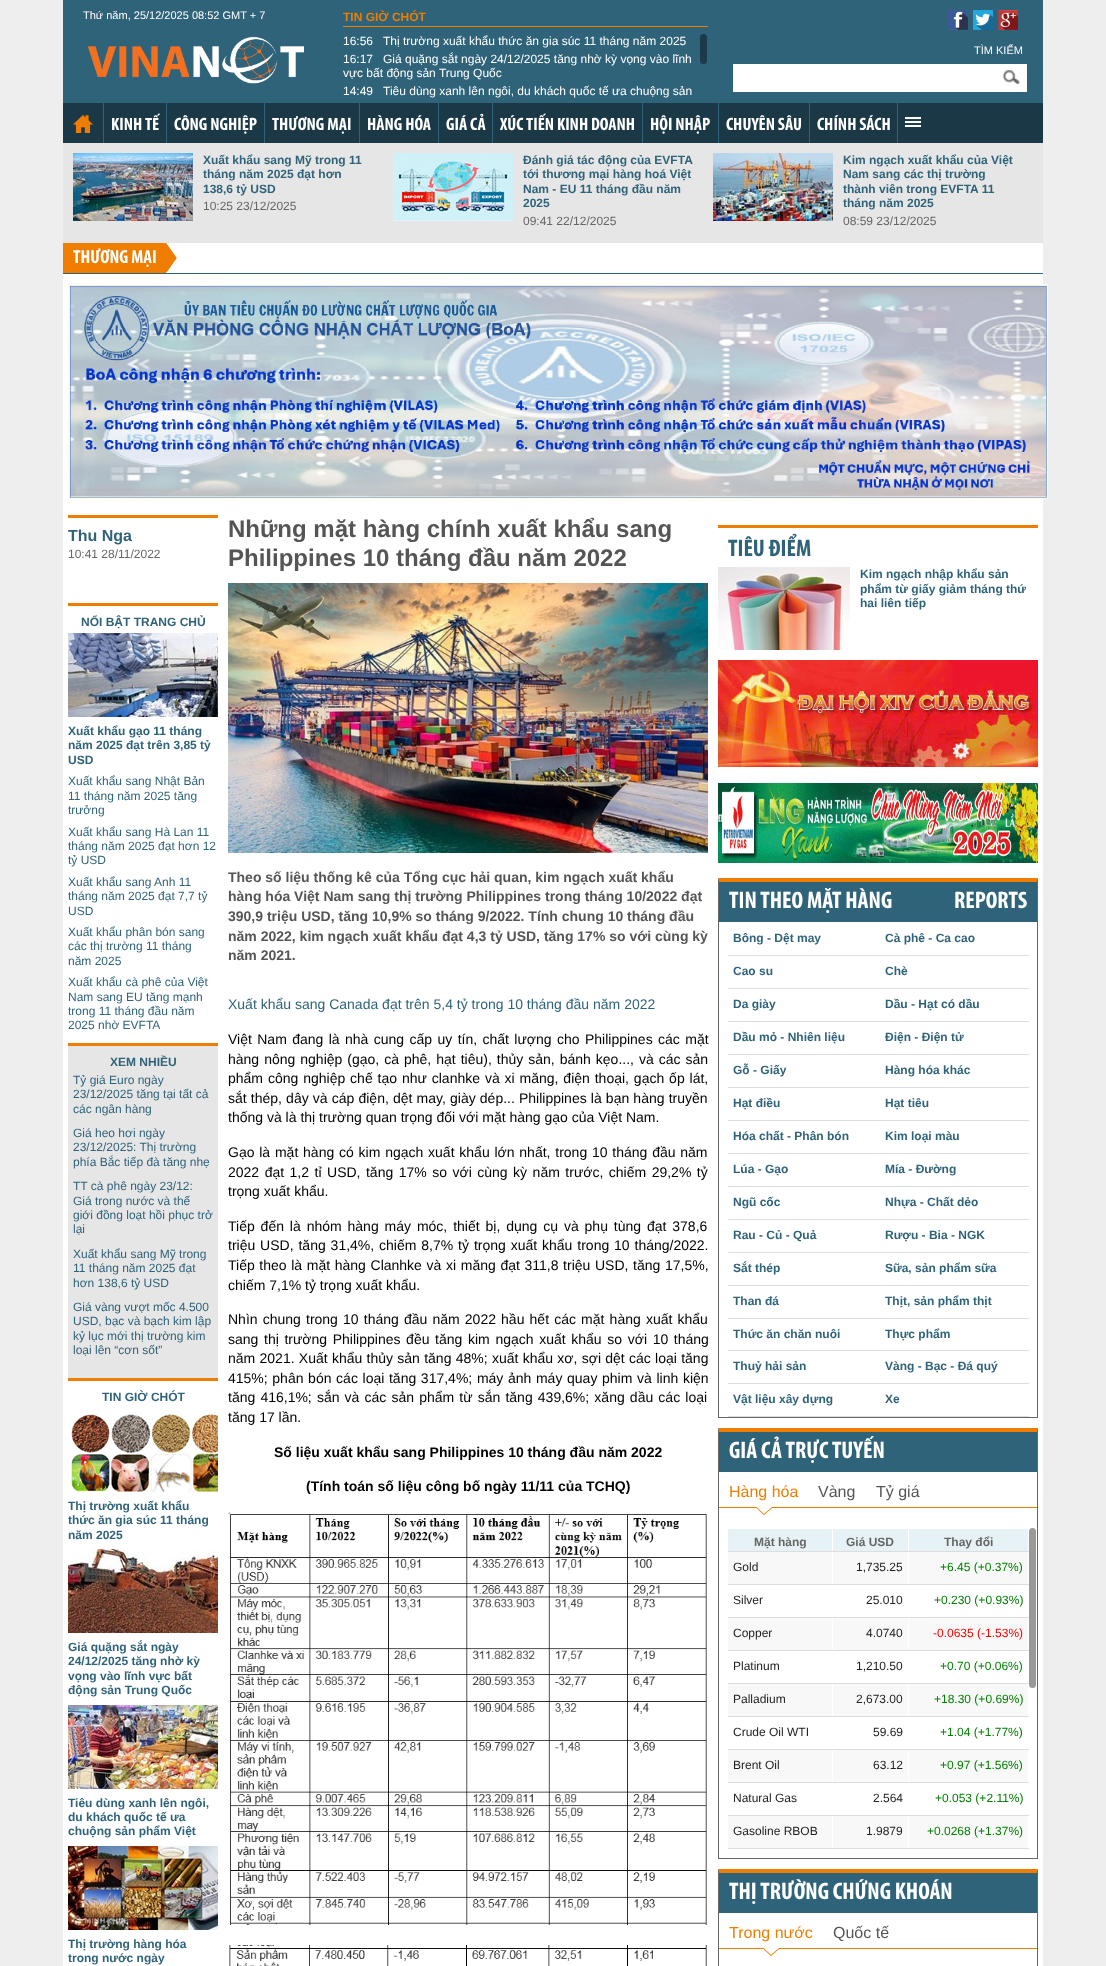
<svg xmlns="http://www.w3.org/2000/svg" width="1106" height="1966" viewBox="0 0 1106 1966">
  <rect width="100%" height="100%" fill="#eee"/>
  <path d="M63 0h980v103H63z" fill="#2f6379"/>
  <path d="M343 26h365v1H343z" fill="#ef7d00"/>
  <rect x="700" y="34" width="7" height="30" rx="3.5" fill="#1c3b49"/>
  <image x="948" y="10" width="20" height="20" href="img/1.png"/>
  <image x="973" y="10" width="20" height="20" href="img/2.png"/>
  <image x="998" y="10" width="20" height="20" href="img/3.png"/>
  <image x="88" y="36" width="216" height="48" href="img/4.png"/>
  <path d="M733 64h294v28H733z" fill="#fff"/>
  <image x="1003" y="70" width="17" height="14" href="img/5.png"/>
  <path d="M63 103h980v40H63z" fill="#1a3845"/>
  <path d="M103 103h1v40H103z" fill="#2f6379"/>
  <image x="73" y="115" width="20" height="18" href="img/6.png"/>
  <path d="M166 103h1v40H166z" fill="#2f6379"/>
  <path d="M264 103h1v40H264z" fill="#2f6379"/>
  <path d="M359 103h1v40H359z" fill="#2f6379"/>
  <path d="M438 103h1v40H438z" fill="#2f6379"/>
  <path d="M492 103h1v40H492z" fill="#2f6379"/>
  <path d="M642 103h1v40H642z" fill="#2f6379"/>
  <path d="M718 103h1v40H718z" fill="#2f6379"/>
  <path d="M809 103h1v40H809z" fill="#2f6379"/>
  <path d="M897 103h1v40H897z" fill="#2f6379"/>
  <image x="905" y="117" width="16" height="10" href="img/7.png"/>
  <path d="M63 243h980v1723H63z" fill="#fff"/>
  <path d="M63 143h980v100H63z" fill="#e6e6e6"/>
  <image x="73" y="153" width="120" height="68" href="img/8.png"/>
  <image x="393" y="153" width="120" height="68" href="img/9.png"/>
  <image x="713" y="153" width="120" height="68" href="img/10.png"/>
  <path d="M63 273h980v1H63z" fill="#2f6379"/>
  <path d="M63 243h103v30H63z" fill="#ef7d00"/>
  <image x="166" y="243" width="12" height="30" href="img/11.png"/>
  <image x="68" y="284" width="980" height="215" href="img/12.png"/>
  <path d="M68 515h150v3H68z" fill="#ef7d00"/>
  <path d="M68 603h150v3H68z" fill="#ef7d00"/>
  <image x="68" y="633" width="150" height="84" href="img/13.png"/>
  <path d="M68 1046h150v332H68z" fill="#e6e6e6"/>
  <path d="M68 1043h150v3H68z" fill="#ef7d00"/>
  <path d="M68 1378h150v3H68z" fill="#ef7d00"/>
  <image x="71" y="1411" width="147" height="81" href="img/14.png"/>
  <image x="68" y="1549" width="150" height="84" href="img/15.png"/>
  <image x="68" y="1705" width="150" height="84" href="img/16.png"/>
  <image x="68" y="1846" width="150" height="84" href="img/17.png"/>
  <image x="228" y="583" width="480" height="270" href="img/18.png"/>
  <image x="228" y="1512" width="479" height="413" href="img/19.png"/>
  <image x="229" y="1945" width="478" height="21" href="img/20.png"/>
  <path d="M718 525h320v3H718z" fill="#ef7d00"/>
  <image x="718" y="567" width="132" height="83" href="img/21.png"/>
  <image x="718" y="660" width="320" height="107" href="img/22.png"/>
  <image x="718" y="783" width="320" height="80" href="img/23.png"/>
  <path d="M718 878H1038L1037 880H719Z" fill="#ef7d00"/>
  <path d="M1038 878V1418L1037 1417V880Z" fill="#666"/>
  <path d="M718 1417h320v1H718z" fill="#666"/>
  <path d="M718 1418V878L719 880V1417Z" fill="#666"/>
  <path d="M719 882h318v40H719z" fill="#2f6379"/>
  <path d="M719 880h318v2H719z" fill="#ef7d00"/>
  <path d="M879 955h150v1H879z" fill="#ddd"/>
  <path d="M879 955h1v1H879z" fill="#fff"/>
  <path d="M727 955h153v1H727z" fill="#ddd"/>
  <path d="M727 955h1v1H727z" fill="#fff"/>
  <path d="M879 988h150v1H879z" fill="#ddd"/>
  <path d="M879 988h1v1H879z" fill="#fff"/>
  <path d="M727 988h153v1H727z" fill="#ddd"/>
  <path d="M727 988h1v1H727z" fill="#fff"/>
  <path d="M879 1021h150v1H879z" fill="#ddd"/>
  <path d="M879 1021h1v1H879z" fill="#fff"/>
  <path d="M727 1021h153v1H727z" fill="#ddd"/>
  <path d="M727 1021h1v1H727z" fill="#fff"/>
  <path d="M879 1054h150v1H879z" fill="#ddd"/>
  <path d="M879 1054h1v1H879z" fill="#fff"/>
  <path d="M727 1054h153v1H727z" fill="#ddd"/>
  <path d="M727 1054h1v1H727z" fill="#fff"/>
  <path d="M879 1087h150v1H879z" fill="#ddd"/>
  <path d="M879 1087h1v1H879z" fill="#fff"/>
  <path d="M727 1087h153v1H727z" fill="#ddd"/>
  <path d="M727 1087h1v1H727z" fill="#fff"/>
  <path d="M879 1120h150v1H879z" fill="#ddd"/>
  <path d="M879 1120h1v1H879z" fill="#fff"/>
  <path d="M727 1120h153v1H727z" fill="#ddd"/>
  <path d="M727 1120h1v1H727z" fill="#fff"/>
  <path d="M879 1153h150v1H879z" fill="#ddd"/>
  <path d="M879 1153h1v1H879z" fill="#fff"/>
  <path d="M727 1153h153v1H727z" fill="#ddd"/>
  <path d="M727 1153h1v1H727z" fill="#fff"/>
  <path d="M879 1186h150v1H879z" fill="#ddd"/>
  <path d="M879 1186h1v1H879z" fill="#fff"/>
  <path d="M727 1186h153v1H727z" fill="#ddd"/>
  <path d="M727 1186h1v1H727z" fill="#fff"/>
  <path d="M879 1219h150v1H879z" fill="#ddd"/>
  <path d="M879 1219h1v1H879z" fill="#fff"/>
  <path d="M727 1219h153v1H727z" fill="#ddd"/>
  <path d="M727 1219h1v1H727z" fill="#fff"/>
  <path d="M879 1252h150v1H879z" fill="#ddd"/>
  <path d="M879 1252h1v1H879z" fill="#fff"/>
  <path d="M727 1252h153v1H727z" fill="#ddd"/>
  <path d="M727 1252h1v1H727z" fill="#fff"/>
  <path d="M879 1285h150v1H879z" fill="#ddd"/>
  <path d="M879 1285h1v1H879z" fill="#fff"/>
  <path d="M727 1285h153v1H727z" fill="#ddd"/>
  <path d="M727 1285h1v1H727z" fill="#fff"/>
  <path d="M879 1318h150v1H879z" fill="#ddd"/>
  <path d="M879 1318h1v1H879z" fill="#fff"/>
  <path d="M727 1318h153v1H727z" fill="#ddd"/>
  <path d="M727 1318h1v1H727z" fill="#fff"/>
  <path d="M879 1350h150v1H879z" fill="#ddd"/>
  <path d="M879 1350h1v1H879z" fill="#fff"/>
  <path d="M727 1350h153v1H727z" fill="#ddd"/>
  <path d="M727 1350h1v1H727z" fill="#fff"/>
  <path d="M879 1383h150v1H879z" fill="#ddd"/>
  <path d="M879 1383h1v1H879z" fill="#fff"/>
  <path d="M727 1383h153v1H727z" fill="#ddd"/>
  <path d="M727 1383h1v1H727z" fill="#fff"/>
  <path d="M879 1416h150v1H879z" fill="#ddd"/>
  <path d="M879 1416h1v1H879z" fill="#fff"/>
  <path d="M727 1416h153v1H727z" fill="#ddd"/>
  <path d="M727 1416h1v1H727z" fill="#fff"/>
  <path d="M718 1428H1038L1037 1430H719Z" fill="#ef7d00"/>
  <path d="M1038 1428V1859L1037 1858V1430Z" fill="#666"/>
  <path d="M718 1858h320v1H718z" fill="#666"/>
  <path d="M718 1859V1428L719 1430V1858Z" fill="#666"/>
  <path d="M719 1432h318v40H719z" fill="#2f6379"/>
  <path d="M719 1430h318v2H719z" fill="#ef7d00"/>
  <path d="M719 1507h318v1H719z" fill="#ef7d00"/>
  <image x="756" y="1507" width="16" height="8" href="img/24.png"/>
  <path d="M728 1529h104v22H728z" fill="#e6f2f5"/>
  <path d="M728 1552h300v32H728z" fill="#f8f8f8"/>
  <path d="M908 1584h121v1H908z" fill="#ddd"/>
  <path d="M908 1551h1v34H908z" fill="#fff"/>
  <path d="M908 1551h121v1H908z" fill="#ddd"/>
  <path d="M908 1551h1v1H908z" fill="#fff"/>
  <path d="M832 1584h77v1H832z" fill="#ddd"/>
  <path d="M832 1551h1v34H832z" fill="#fff"/>
  <path d="M832 1551h77v1H832z" fill="#ddd"/>
  <path d="M832 1551h1v1H832z" fill="#fff"/>
  <path d="M727 1551h106v1H727z" fill="#ddd"/>
  <path d="M727 1551h1v1H727z" fill="#fff"/>
  <path d="M833 1529h75v22H833z" fill="#e6f2f5"/>
  <path d="M909 1529h119v22H909z" fill="#e6f2f5"/>
  <path d="M727 1584h106v1H727z" fill="#ddd"/>
  <path d="M727 1584h1v1H727z" fill="#fff"/>
  <path d="M728 1618h300v32H728z" fill="#f8f8f8"/>
  <path d="M908 1650h121v1H908z" fill="#ddd"/>
  <path d="M908 1617h1v34H908z" fill="#fff"/>
  <path d="M908 1617h121v1H908z" fill="#ddd"/>
  <path d="M908 1617h1v1H908z" fill="#fff"/>
  <path d="M832 1650h77v1H832z" fill="#ddd"/>
  <path d="M832 1617h1v34H832z" fill="#fff"/>
  <path d="M832 1617h77v1H832z" fill="#ddd"/>
  <path d="M832 1617h1v1H832z" fill="#fff"/>
  <path d="M727 1617h106v1H727z" fill="#ddd"/>
  <path d="M727 1617h1v1H727z" fill="#fff"/>
  <path d="M727 1650h106v1H727z" fill="#ddd"/>
  <path d="M727 1650h1v1H727z" fill="#fff"/>
  <path d="M728 1684h300v32H728z" fill="#f8f8f8"/>
  <path d="M908 1716h121v1H908z" fill="#ddd"/>
  <path d="M908 1683h1v34H908z" fill="#fff"/>
  <path d="M908 1683h121v1H908z" fill="#ddd"/>
  <path d="M908 1683h1v1H908z" fill="#fff"/>
  <path d="M832 1716h77v1H832z" fill="#ddd"/>
  <path d="M832 1683h1v34H832z" fill="#fff"/>
  <path d="M832 1683h77v1H832z" fill="#ddd"/>
  <path d="M832 1683h1v1H832z" fill="#fff"/>
  <path d="M727 1683h106v1H727z" fill="#ddd"/>
  <path d="M727 1683h1v1H727z" fill="#fff"/>
  <path d="M727 1716h106v1H727z" fill="#ddd"/>
  <path d="M727 1716h1v1H727z" fill="#fff"/>
  <path d="M728 1750h300v32H728z" fill="#f8f8f8"/>
  <path d="M908 1782h121v1H908z" fill="#ddd"/>
  <path d="M908 1749h1v34H908z" fill="#fff"/>
  <path d="M908 1749h121v1H908z" fill="#ddd"/>
  <path d="M908 1749h1v1H908z" fill="#fff"/>
  <path d="M832 1782h77v1H832z" fill="#ddd"/>
  <path d="M832 1749h1v34H832z" fill="#fff"/>
  <path d="M832 1749h77v1H832z" fill="#ddd"/>
  <path d="M832 1749h1v1H832z" fill="#fff"/>
  <path d="M727 1749h106v1H727z" fill="#ddd"/>
  <path d="M727 1749h1v1H727z" fill="#fff"/>
  <path d="M727 1782h106v1H727z" fill="#ddd"/>
  <path d="M727 1782h1v1H727z" fill="#fff"/>
  <path d="M728 1816h300v32H728z" fill="#f8f8f8"/>
  <path d="M908 1848h121v1H908z" fill="#ddd"/>
  <path d="M908 1815h1v34H908z" fill="#fff"/>
  <path d="M908 1815h121v1H908z" fill="#ddd"/>
  <path d="M908 1815h1v1H908z" fill="#fff"/>
  <path d="M832 1848h77v1H832z" fill="#ddd"/>
  <path d="M832 1815h1v34H832z" fill="#fff"/>
  <path d="M832 1815h77v1H832z" fill="#ddd"/>
  <path d="M832 1815h1v1H832z" fill="#fff"/>
  <path d="M727 1815h106v1H727z" fill="#ddd"/>
  <path d="M727 1815h1v1H727z" fill="#fff"/>
  <path d="M727 1848h106v1H727z" fill="#ddd"/>
  <path d="M727 1848h1v1H727z" fill="#fff"/>
  <rect x="1029" y="1528" width="7" height="160" rx="3.5" fill="#999"/>
  <path d="M718 1869H1038L1037 1871H719Z" fill="#ef7d00"/>
  <path d="M1038 1869V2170L1037 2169V1871Z" fill="#666"/>
  <path d="M718 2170V1869L719 1871V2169Z" fill="#666"/>
  <path d="M719 1873h318v40H719z" fill="#2f6379"/>
  <path d="M719 1871h318v2H719z" fill="#ef7d00"/>
  <path d="M719 1948h318v1H719z" fill="#ef7d00"/>
  <image x="763" y="1948" width="16" height="8" href="img/24.png"/>
  <text x="83" y="19" font-family="Liberation Sans" font-size="11" fill="#fff">Thứ năm, 25/12/2025 08:52 GMT + 7</text>
  <text x="343" y="21" font-family="Liberation Sans" font-size="12" font-weight="bold" fill="#ef7d00">TIN GIỜ CHÓT</text>
  <g font-family="Liberation Sans" font-size="12" fill="#fff">
    <text x="343" y="45">16:56</text>
    <text x="383" y="45">Thị trường xuất khẩu thức ăn gia súc 11 tháng năm 2025</text>
    <text x="343" y="63">16:17</text>
    <text x="383" y="63">Giá quặng sắt ngày 24/12/2025 tăng nhờ kỳ vọng vào lĩnh</text>
    <text x="343" y="77">vực bất động sản Trung Quốc</text>
    <text x="343" y="95">14:49</text>
    <text x="383" y="95">Tiêu dùng xanh lên ngôi, du khách quốc tế ưa chuộng sản</text>
  </g>
  <text x="974" y="54" font-family="Liberation Sans" font-size="11" fill="#fff">TÌM KIẾM</text>
  <g font-family="Myriad" font-size="18" font-weight="bold" fill="#fff">
    <text x="111" y="130">KINH TẾ</text>
    <text x="174" y="130">CÔNG NGHIỆP</text>
    <text x="272" y="130">THƯƠNG MẠI</text>
    <text x="367" y="130">HÀNG HÓA</text>
    <text x="446" y="130">GIÁ CẢ</text>
    <text x="500" y="130">XÚC TIẾN KINH DOANH</text>
    <text x="650" y="130">HỘI NHẬP</text>
    <text x="726" y="130">CHUYÊN SÂU</text>
    <text x="817" y="130">CHÍNH SÁCH</text>
  </g>
  <g font-family="Liberation Sans" font-size="12" font-weight="bold" fill="#2f6379">
    <text x="203" y="164">Xuất khẩu sang Mỹ trong 11</text>
    <text x="203" y="178">tháng năm 2025 đạt hơn</text>
    <text x="203" y="193">138,6 tỷ USD</text>
  </g>
  <text x="203" y="210" font-family="Liberation Sans" font-size="12" fill="#666">10:25 23/12/2025</text>
  <g font-family="Liberation Sans" font-size="12" font-weight="bold" fill="#2f6379">
    <text x="523" y="164">Đánh giá tác động của EVFTA</text>
    <text x="523" y="178">tới thương mại hàng hoá Việt</text>
    <text x="523" y="193">Nam - EU 11 tháng đầu năm</text>
    <text x="523" y="207">2025</text>
  </g>
  <text x="523" y="225" font-family="Liberation Sans" font-size="12" fill="#666">09:41 22/12/2025</text>
  <g font-family="Liberation Sans" font-size="12" font-weight="bold" fill="#2f6379">
    <text x="843" y="164">Kim ngạch xuất khẩu của Việt</text>
    <text x="843" y="178">Nam sang các thị trường</text>
    <text x="843" y="193">thành viên trong EVFTA 11</text>
    <text x="843" y="207">tháng năm 2025</text>
  </g>
  <text x="843" y="225" font-family="Liberation Sans" font-size="12" fill="#666">08:59 23/12/2025</text>
  <text x="73" y="263" font-family="Myriad" font-size="19" font-weight="bold" fill="#fff">THƯƠNG MẠI</text>
  <text x="68" y="541" font-family="Liberation Sans" font-size="16" font-weight="bold" fill="#2f6379">Thu Nga</text>
  <text x="68" y="558" font-family="Liberation Sans" font-size="12" fill="#666">10:41 28/11/2022</text>
  <g font-family="Liberation Sans" font-size="12" font-weight="bold" fill="#2f6379">
    <text x="81" y="626">NỔI BẬT TRANG CHỦ</text>
    <text x="68" y="735">Xuất khẩu gạo 11 tháng</text>
    <text x="68" y="749">năm 2025 đạt trên 3,85 tỷ</text>
    <text x="68" y="764">USD</text>
  </g>
  <g font-family="Liberation Sans" font-size="12" fill="#2f6379">
    <text x="68" y="785">Xuất khẩu sang Nhật Bản</text>
    <text x="68" y="800">11 tháng năm 2025 tăng</text>
    <text x="68" y="814">trưởng</text>
    <text x="68" y="836">Xuất khẩu sang Hà Lan 11</text>
    <text x="68" y="850">tháng năm 2025 đạt hơn 12</text>
    <text x="68" y="864">tỷ USD</text>
    <text x="68" y="886">Xuất khẩu sang Anh 11</text>
    <text x="68" y="900">tháng năm 2025 đạt 7,7 tỷ</text>
    <text x="68" y="915">USD</text>
    <text x="68" y="936">Xuất khẩu phân bón sang</text>
    <text x="68" y="950">các thị trường 11 tháng</text>
    <text x="68" y="965">năm 2025</text>
    <text x="68" y="986">Xuất khẩu cà phê của Việt</text>
    <text x="68" y="1001">Nam sang EU tăng mạnh</text>
    <text x="68" y="1015">trong 11 tháng đầu năm</text>
    <text x="68" y="1029">2025 nhờ EVFTA</text>
  </g>
  <text x="110" y="1066" font-family="Liberation Sans" font-size="12" font-weight="bold" fill="#2f6379">XEM NHIỀU</text>
  <g font-family="Liberation Sans" font-size="12" fill="#2f6379">
    <text x="73" y="1084">Tỷ giá Euro ngày</text>
    <text x="73" y="1098">23/12/2025 tăng tại tất cả</text>
    <text x="73" y="1113">các ngân hàng</text>
    <text x="73" y="1137">Giá heo hơi ngày</text>
    <text x="73" y="1151">23/12/2025: Thị trường</text>
    <text x="73" y="1166">phía Bắc tiếp đà tăng nhẹ</text>
    <text x="73" y="1190">TT cà phê ngày 23/12:</text>
    <text x="73" y="1205">Giá trong nước và thế</text>
    <text x="73" y="1219">giới đồng loạt hồi phục trở</text>
    <text x="73" y="1233">lại</text>
    <text x="73" y="1258">Xuất khẩu sang Mỹ trong</text>
    <text x="73" y="1272">11 tháng năm 2025 đạt</text>
    <text x="73" y="1287">hơn 138,6 tỷ USD</text>
    <text x="73" y="1311">Giá vàng vượt mốc 4.500</text>
    <text x="73" y="1325">USD, bạc và bạch kim lập</text>
    <text x="73" y="1340">kỷ lục mới thị trường kim</text>
    <text x="73" y="1354">loại lên “cơn sốt”</text>
  </g>
  <g font-family="Liberation Sans" font-size="12" font-weight="bold" fill="#2f6379">
    <text x="102" y="1401">TIN GIỜ CHÓT</text>
    <text x="68" y="1510">Thị trường xuất khẩu</text>
    <text x="68" y="1524">thức ăn gia súc 11 tháng</text>
    <text x="68" y="1539">năm 2025</text>
    <text x="68" y="1651">Giá quặng sắt ngày</text>
    <text x="68" y="1665">24/12/2025 tăng nhờ kỳ</text>
    <text x="68" y="1680">vọng vào lĩnh vực bất</text>
    <text x="68" y="1694">động sản Trung Quốc</text>
    <text x="68" y="1807">Tiêu dùng xanh lên ngôi,</text>
    <text x="68" y="1821">du khách quốc tế ưa</text>
    <text x="68" y="1835">chuộng sản phẩm Việt</text>
    <text x="68" y="1948">Thị trường hàng hóa</text>
    <text x="68" y="1962">trong nước ngày</text>
  </g>
  <g font-family="Liberation Sans" font-size="24" font-weight="bold" fill="#555">
    <text x="228" y="537">Những mặt hàng chính xuất khẩu sang</text>
    <text x="228" y="566">Philippines 10 tháng đầu năm 2022</text>
  </g>
  <g font-family="Liberation Sans" font-size="14" font-weight="bold" fill="#555">
    <text x="228" y="882">Theo số liệu thống kê của Tổng cục hải quan, kim ngạch xuất khẩu</text>
    <text x="228" y="901">hàng hóa Việt Nam sang thị trường Philippines trong tháng 10/2022 đạt</text>
    <text x="228" y="921">390,9 triệu USD, tăng 10,9% so tháng 9/2022. Tính chung 10 tháng đầu</text>
    <text x="228" y="941">năm 2022, kim ngạch xuất khẩu đạt 4,3 tỷ USD, tăng 17% so với cùng kỳ</text>
    <text x="228" y="960">năm 2021.</text>
  </g>
  <text x="228" y="1009" font-family="Liberation Sans" font-size="14" fill="#2f6379">Xuất khẩu sang Canada đạt trên 5,4 tỷ trong 10 tháng đầu năm 2022</text>
  <g font-family="Liberation Sans" font-size="14" fill="#000">
    <text x="228" y="1044" word-spacing="1.5">Việt Nam đang là nhà cung cấp uy tín, chất lượng cho Philippines các mặt</text>
    <text x="228" y="1064" word-spacing="1.1">hàng nông nghiệp (gạo, cà phê, hạt tiêu), thủy sản, bánh kẹo..., và các sản</text>
    <text x="228" y="1083" word-spacing="1">phẩm công nghiệp chế tạo như clanhke và xi măng, điện thoại, gạch ốp lát,</text>
    <text x="228" y="1103" word-spacing="0.25">sắt thép, dây và cáp điện, dệt may, giày dép... Philippines là bạn hàng truyền</text>
    <text x="228" y="1122">thống và là thị trường quan trọng đối với mặt hàng gạo của Việt Nam.</text>
    <text x="228" y="1157" word-spacing="0.9">Gạo là mặt hàng có kim ngạch xuất khẩu lớn nhất, trong 10 tháng đầu năm</text>
    <text x="228" y="1177" word-spacing="1.6">2022 đạt 1,2 tỉ USD, tăng 17% so với cùng kỳ năm trước, chiếm 29,2% tỷ</text>
    <text x="228" y="1196">trọng xuất khẩu.</text>
    <text x="228" y="1231" word-spacing="2">Tiếp đến là nhóm hàng máy móc, thiết bị, dụng cụ và phụ tùng đạt 378,6</text>
    <text x="228" y="1250" word-spacing="1">triệu USD, tăng 31,4%, chiếm 8,7% tỷ trọng xuất khẩu trong 10 tháng/2022.</text>
    <text x="228" y="1270" word-spacing="0.75">Tiếp theo là mặt hàng Clanhke và xi măng đạt 311,8 triệu USD, tăng 17,5%,</text>
    <text x="228" y="1290">chiếm 7,1% tỷ trọng xuất khẩu.</text>
    <text x="228" y="1324" word-spacing="1.25">Nhìn chung trong 10 tháng đầu năm 2022 hầu hết các mặt hàng xuất khẩu</text>
    <text x="228" y="1344" word-spacing="1.75">sang thị trường Philippines đều tăng kim ngạch xuất khẩu so với 10 tháng</text>
    <text x="228" y="1363" word-spacing="0.4">năm 2021. Xuất khẩu thủy sản tăng 48%; xuất khẩu xơ, sợi dệt các loại tăng</text>
    <text x="228" y="1383" word-spacing="0.75">415%; phân bón các loại tăng 317,4%; máy ảnh máy quay phim và linh kiện</text>
    <text x="228" y="1402" word-spacing="1.25">tăng 416,1%; sắn và các sản phẩm từ sắn tăng 439,6%; xăng dầu các loại</text>
    <text x="228" y="1422">tăng 17 lần.</text>
  </g>
  <g font-family="Liberation Sans" font-size="14" font-weight="bold" fill="#000">
    <text x="274" y="1457">Số liệu xuất khẩu sang Philippines 10 tháng đầu năm 2022</text>
    <text x="306" y="1491">(Tính toán số liệu công bố ngày 11/11 của TCHQ)</text>
  </g>
  <text x="728" y="556" font-family="Myriad" font-size="24" font-weight="bold" fill="#2f6379">TIÊU ĐIỂM</text>
  <g font-family="Liberation Sans" font-size="12" font-weight="bold" fill="#2f6379">
    <text x="860" y="578">Kim ngạch nhập khẩu sản</text>
    <text x="860" y="593">phẩm từ giấy giảm tháng thứ</text>
    <text x="860" y="607">hai liên tiếp</text>
  </g>
  <g font-family="Myriad" font-size="24" font-weight="bold" fill="#fff">
    <text x="729" y="908">TIN THEO MẶT HÀNG</text>
    <text x="954" y="908">REPORTS</text>
  </g>
  <g font-family="Liberation Sans" font-size="12" font-weight="bold" fill="#2f6379">
    <text x="733" y="942">Bông - Dệt may</text>
    <text x="885" y="942">Cà phê - Ca cao</text>
    <text x="733" y="975">Cao su</text>
    <text x="885" y="975">Chè</text>
    <text x="733" y="1008">Da giày</text>
    <text x="885" y="1008">Dầu - Hạt có dầu</text>
    <text x="733" y="1041">Dầu mỏ - Nhiên liệu</text>
    <text x="885" y="1041">Điện - Điện tử</text>
    <text x="733" y="1074">Gỗ - Giấy</text>
    <text x="885" y="1074">Hàng hóa khác</text>
    <text x="733" y="1107">Hạt điều</text>
    <text x="885" y="1107">Hạt tiêu</text>
    <text x="733" y="1140">Hóa chất - Phân bón</text>
    <text x="885" y="1140">Kim loại màu</text>
    <text x="733" y="1173">Lúa - Gạo</text>
    <text x="885" y="1173">Mía - Đường</text>
    <text x="733" y="1206">Ngũ cốc</text>
    <text x="885" y="1206">Nhựa - Chất dẻo</text>
    <text x="733" y="1239">Rau - Củ - Quả</text>
    <text x="885" y="1239">Rượu - Bia - NGK</text>
    <text x="733" y="1272">Sắt thép</text>
    <text x="885" y="1272">Sữa, sản phẩm sữa</text>
    <text x="733" y="1305">Than đá</text>
    <text x="885" y="1305">Thịt, sản phẩm thịt</text>
    <text x="733" y="1338">Thức ăn chăn nuôi</text>
    <text x="885" y="1338">Thực phẩm</text>
    <text x="733" y="1370">Thuỷ hải sản</text>
    <text x="885" y="1370">Vàng - Bạc - Đá quý</text>
    <text x="733" y="1403">Vật liệu xây dựng</text>
    <text x="885" y="1403">Xe</text>
  </g>
  <text x="729" y="1458" font-family="Myriad" font-size="24" font-weight="bold" fill="#fff">GIÁ CẢ TRỰC TUYẾN</text>
  <text x="729" y="1497" font-family="Liberation Sans" font-size="16" fill="#ef7d00">Hàng hóa</text>
  <g font-family="Liberation Sans" font-size="16" fill="#555">
    <text x="818" y="1497">Vàng</text>
    <text x="876" y="1497">Tỷ giá</text>
  </g>
  <g font-family="Liberation Sans" font-size="12" font-weight="bold" fill="#666">
    <text x="754" y="1546">Mặt hàng</text>
    <text x="846" y="1546">Giá USD</text>
    <text x="944" y="1546">Thay đổi</text>
  </g>
  <g font-family="Liberation Sans" font-size="12" fill="#222">
    <text x="733" y="1571">Gold</text>
    <text x="856" y="1571">1,735.25</text>
  </g>
  <text x="940" y="1571" font-family="Liberation Sans" font-size="12" fill="#008000">+6.45 (+0.37%)</text>
  <g font-family="Liberation Sans" font-size="12" fill="#222">
    <text x="733" y="1604">Silver</text>
    <text x="866" y="1604">25.010</text>
  </g>
  <text x="934" y="1604" font-family="Liberation Sans" font-size="12" fill="#008000">+0.230 (+0.93%)</text>
  <g font-family="Liberation Sans" font-size="12" fill="#222">
    <text x="733" y="1637">Copper</text>
    <text x="866" y="1637">4.0740</text>
  </g>
  <text x="933" y="1637" font-family="Liberation Sans" font-size="12" fill="#f00">-0.0635 (-1.53%)</text>
  <g font-family="Liberation Sans" font-size="12" fill="#222">
    <text x="733" y="1670">Platinum</text>
    <text x="856" y="1670">1,210.50</text>
  </g>
  <text x="940" y="1670" font-family="Liberation Sans" font-size="12" fill="#008000">+0.70 (+0.06%)</text>
  <g font-family="Liberation Sans" font-size="12" fill="#222">
    <text x="733" y="1703">Palladium</text>
    <text x="856" y="1703">2,673.00</text>
  </g>
  <text x="934" y="1703" font-family="Liberation Sans" font-size="12" fill="#008000">+18.30 (+0.69%)</text>
  <g font-family="Liberation Sans" font-size="12" fill="#222">
    <text x="733" y="1736">Crude Oil WTI</text>
    <text x="873" y="1736">59.69</text>
  </g>
  <text x="940" y="1736" font-family="Liberation Sans" font-size="12" fill="#008000">+1.04 (+1.77%)</text>
  <g font-family="Liberation Sans" font-size="12" fill="#222">
    <text x="733" y="1769">Brent Oil</text>
    <text x="873" y="1769">63.12</text>
  </g>
  <text x="940" y="1769" font-family="Liberation Sans" font-size="12" fill="#008000">+0.97 (+1.56%)</text>
  <g font-family="Liberation Sans" font-size="12" fill="#222">
    <text x="733" y="1802">Natural Gas</text>
    <text x="873" y="1802">2.564</text>
  </g>
  <text x="935" y="1802" font-family="Liberation Sans" font-size="12" fill="#008000">+0.053 (+2.11%)</text>
  <g font-family="Liberation Sans" font-size="12" fill="#222">
    <text x="733" y="1835">Gasoline RBOB</text>
    <text x="866" y="1835">1.9879</text>
  </g>
  <text x="927" y="1835" font-family="Liberation Sans" font-size="12" fill="#008000">+0.0268 (+1.37%)</text>
  <text x="729" y="1899" font-family="Myriad" font-size="24" font-weight="bold" fill="#fff">THỊ TRƯỜNG CHỨNG KHOÁN</text>
  <text x="729" y="1938" font-family="Liberation Sans" font-size="16" fill="#ef7d00">Trong nước</text>
  <text x="833" y="1938" font-family="Liberation Sans" font-size="16" fill="#555">Quốc tế</text>
</svg>
